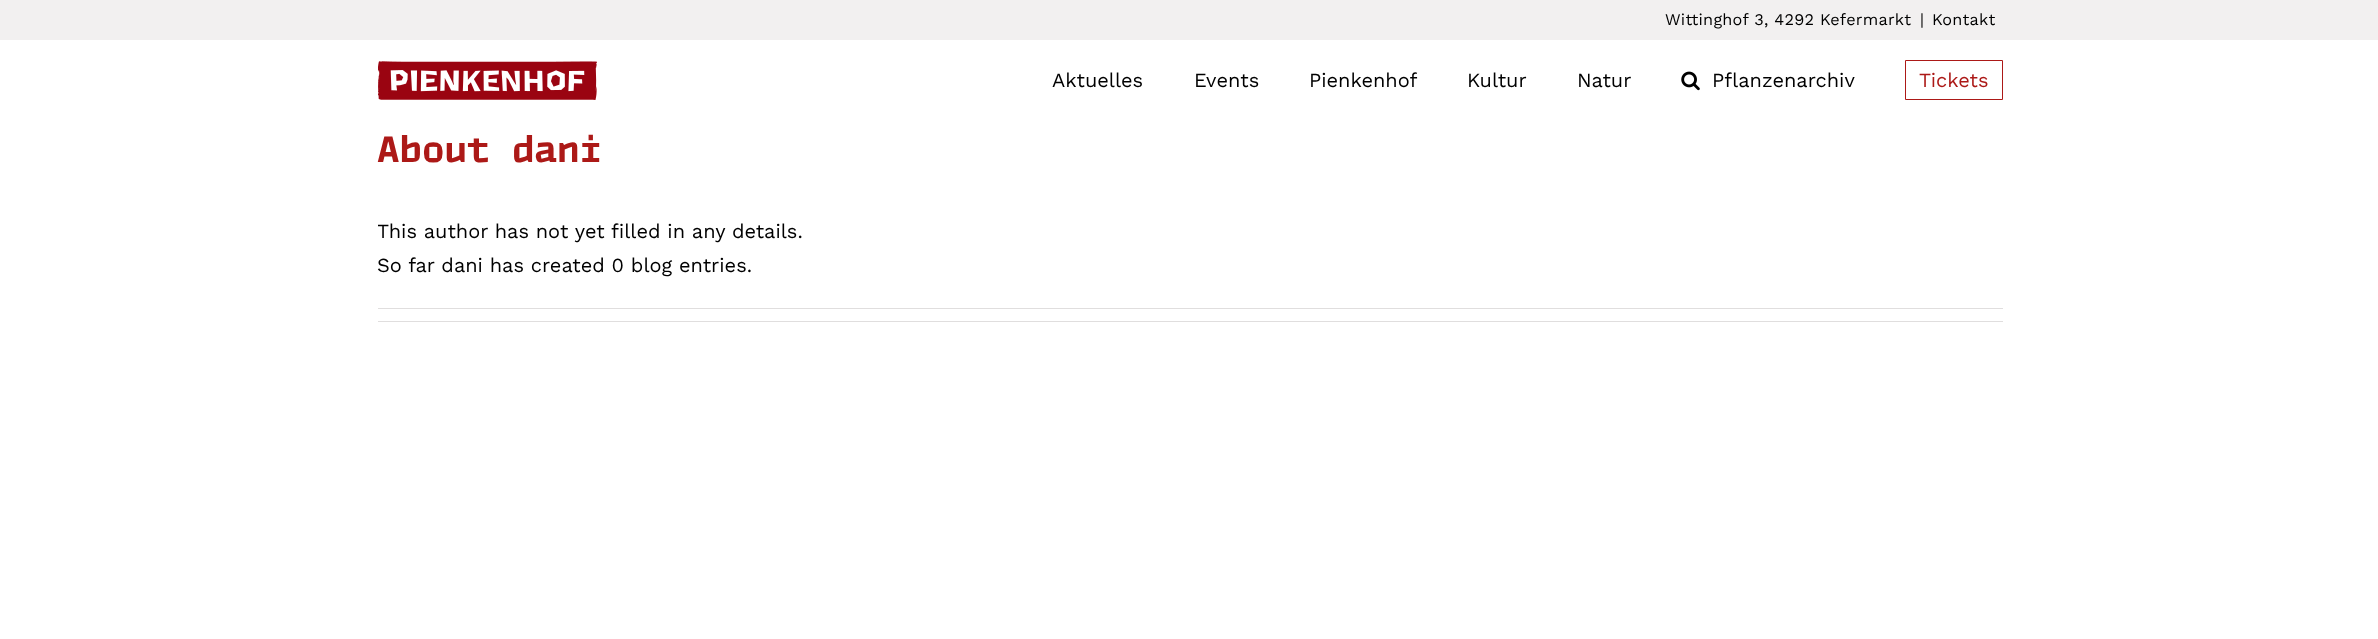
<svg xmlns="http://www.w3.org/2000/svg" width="2378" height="639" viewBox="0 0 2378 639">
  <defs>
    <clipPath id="clip1"><path d="M378 120h1625v163H378z"/></clipPath>
  </defs>
  <rect width="100%" height="100%" fill="#fff"/>
  <path d="M0 0h2378v40H0z" fill="#f2f0f0"/>
  <image x="378" y="61" width="219" height="39" href="img/1.png"/>
  <image x="1681" y="71" width="19" height="20" href="img/2.png"/>
  <path d="M1905.5 60.5h97v39H1905.5z" fill="none" stroke="#ac1917"/>
  <path d="M378 308h1625v1H378z" fill="#e0dede"/>
  <path d="M378 321h1625v1H378z" fill="#e0dede"/>
  <g font-family="Work Sans" font-size="16.25" letter-spacing="0.25" fill="#000">
    <text x="1665" y="25">Wittinghof 3, 4292 Kefermarkt</text>
    <text x="1920" y="25">|</text>
    <text x="1932" y="25">Kontakt</text>
  </g>
  <g font-family="Work Sans" font-size="20" fill="#000">
    <text x="1052" y="87">Aktuelles</text>
    <text x="1194" y="87">Events</text>
    <text x="1309" y="87">Pienkenhof</text>
    <text x="1467" y="87">Kultur</text>
    <text x="1577" y="87">Natur</text>
    <text x="1712" y="87">Pflanzenarchiv</text>
  </g>
  <text x="1919" y="87" font-family="Work Sans" font-size="20" fill="#ac1917">Tickets</text>
  <text x="377" y="162" font-family="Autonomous" font-size="37.5" font-weight="bold" fill="#ac1917">About dani</text>
  <g clip-path="url(#clip1)">
    <text x="377" y="238" font-family="Work Sans" font-size="20" fill="#000">This author has not yet filled in any details.</text>
  </g>
  <text x="377" y="272" font-family="Work Sans" font-size="20" fill="#000">So far dani has created 0 blog entries.</text>
</svg>
